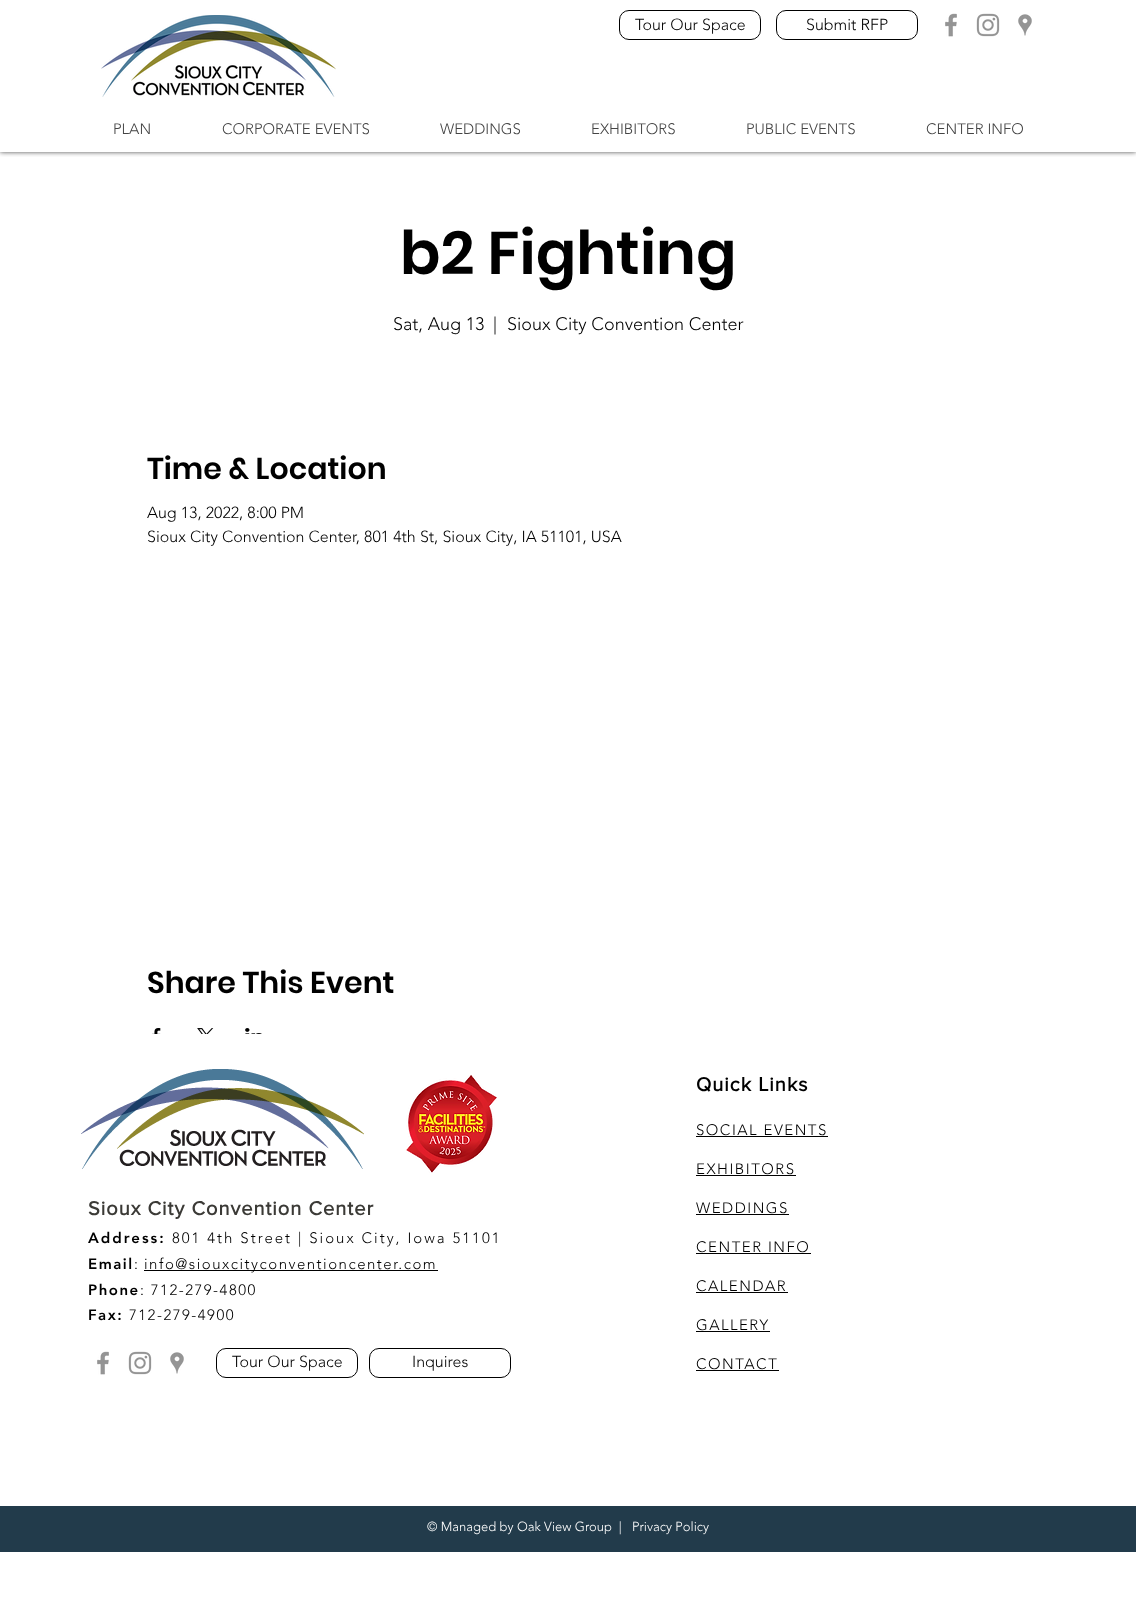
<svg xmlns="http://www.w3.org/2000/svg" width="1136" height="1607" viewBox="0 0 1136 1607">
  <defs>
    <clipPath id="clip1"><path d="M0 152h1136v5H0z"/></clipPath>
  </defs>
  <rect width="100%" height="100%" fill="#fff"/>
  <g clip-path="url(#clip1)">
    <path d="M0 0h1136v152H0z" fill="#000000b3" filter="blur(2.5px)"/>
  </g>
  <image x="101" y="15" width="235" height="82" href="img/1.png"/>
  <rect x="619.5" y="10.5" width="141" height="29" rx="9.5" fill="none" stroke="#000"/>
  <rect x="776.5" y="10.5" width="141" height="29" rx="9.5" fill="none" stroke="#000"/>
  <image x="945" y="13" width="12" height="24" href="img/2.png"/>
  <image x="976" y="13" width="24" height="24" href="img/3.png"/>
  <image x="1018" y="14" width="14" height="22" href="img/4.png"/>
  <image x="152" y="1028" width="9" height="6" href="img/5.png"/>
  <image x="197" y="1028" width="17" height="6" href="img/6.png"/>
  <image x="245" y="1028" width="17" height="6" href="img/7.png"/>
  <image x="81" y="1069" width="283" height="100" href="img/8.png"/>
  <image x="406" y="1075" width="91" height="98" href="img/9.png"/>
  <path d="M144 1270h294v1H144z" fill="#000"/>
  <image x="97" y="1351" width="12" height="24" href="img/2.png"/>
  <image x="128" y="1351" width="24" height="24" href="img/3.png"/>
  <image x="170" y="1352" width="14" height="22" href="img/4.png"/>
  <rect x="216.5" y="1348.5" width="141" height="29" rx="9.5" fill="none" stroke="#000"/>
  <rect x="369.5" y="1348.5" width="141" height="29" rx="9.5" fill="none" stroke="#000"/>
  <path d="M696 1136h132v1H696z" fill="#000"/>
  <path d="M696 1175h100v1H696z" fill="#000"/>
  <path d="M696 1214h93v1H696z" fill="#000"/>
  <path d="M696 1253h115v1H696z" fill="#000"/>
  <path d="M696 1292h92v1H696z" fill="#000"/>
  <path d="M696 1331h74v1H696z" fill="#000"/>
  <path d="M696 1370h83v1H696z" fill="#000"/>
  <path d="M0 1506h1136v46H0z" fill="#223b4b"/>
  <g font-family="'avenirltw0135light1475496'" font-size="16" font-weight="300" fill="#000">
    <text x="635" y="30">Tour Our Space</text>
    <text x="806" y="30">Submit RFP</text>
  </g>
  <g font-family="'avenirltw0135light1475496'" font-size="15" font-weight="300" fill="#444">
    <text x="113" y="134">PLAN</text>
    <text x="222" y="134">CORPORATE EVENTS</text>
    <text x="440" y="134">WEDDINGS</text>
    <text x="591" y="134">EXHIBITORS</text>
    <text x="746" y="134">PUBLIC EVENTS</text>
    <text x="926" y="134">CENTER INFO</text>
  </g>
  <text x="400" y="274" font-family="Poppins" font-size="60" font-weight="600" fill="#000">b2 Fighting</text>
  <g font-family="'avenirltw0135light1475496'" font-size="18" font-weight="300" fill="#000">
    <text x="393" y="330">Sat, Aug 13</text>
    <text x="493" y="330">|</text>
    <text x="507" y="330">Sioux City Convention Center</text>
  </g>
  <text x="147" y="479" font-family="Poppins" font-size="30" font-weight="600" fill="#000">Time &amp; Location</text>
  <g font-family="'avenirltw0135light1475496'" font-size="16" font-weight="300" fill="#000">
    <text x="147" y="518">Aug 13, 2022, 8:00 PM</text>
    <text x="147" y="542">Sioux City Convention Center, 801 4th St, Sioux City, IA 51101, USA</text>
  </g>
  <text x="147" y="993" font-family="Poppins" font-size="30" font-weight="600" fill="#000">Share This Event</text>
  <text x="88" y="1215" font-family="'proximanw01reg'" font-size="20" font-weight="bold" letter-spacing="1" fill="#3b3a36">Sioux City Convention Center</text>
  <text x="88" y="1243" font-family="'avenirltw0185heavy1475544'" font-size="15" font-weight="900" letter-spacing="2" fill="#000">Address:</text>
  <text x="172" y="1243" font-family="'avenirltw0135light1475496'" font-size="15" font-weight="300" letter-spacing="2" fill="#000">801 4th Street | Sioux City, Iowa 51101</text>
  <text x="88" y="1269" font-family="'avenirltw0185heavy1475544'" font-size="15" font-weight="900" letter-spacing="1.5" fill="#000">Email</text>
  <g font-family="'avenirltw0135light1475496'" font-size="15" font-weight="300" letter-spacing="1.5" fill="#000">
    <text x="134" y="1269">:</text>
    <text x="144" y="1269">info@siouxcityconventioncenter.com</text>
  </g>
  <text x="88" y="1295" font-family="'avenirltw0185heavy1475544'" font-size="15" font-weight="900" letter-spacing="1.5" fill="#000">Phone</text>
  <text x="140" y="1295" font-family="'avenirltw0135light1475496'" font-size="15" font-weight="300" letter-spacing="1.5" fill="#000">: 712-279-4800</text>
  <text x="88" y="1320" font-family="'avenirltw0185heavy1475544'" font-size="15" font-weight="900" letter-spacing="1.5" fill="#000">Fax:</text>
  <text x="129" y="1320" font-family="'avenirltw0135light1475496'" font-size="15" font-weight="300" letter-spacing="1.5" fill="#000">712-279-4900</text>
  <g font-family="'avenirltw0135light1475496'" font-size="16" font-weight="300" fill="#000">
    <text x="232" y="1367">Tour Our Space</text>
    <text x="412" y="1367">Inquires</text>
  </g>
  <text x="696" y="1091" font-family="'proximanw01reg'" font-size="20" font-weight="bold" letter-spacing="1" fill="#000">Quick Links</text>
  <g font-family="'avenirltw0135light1475496'" font-size="15" font-weight="300" letter-spacing="1.5" fill="#000">
    <text x="696" y="1135">SOCIAL EVENTS</text>
    <text x="696" y="1174">EXHIBITORS</text>
    <text x="696" y="1213">WEDDINGS</text>
    <text x="696" y="1252">CENTER INFO</text>
    <text x="696" y="1291">CALENDAR</text>
    <text x="696" y="1330">GALLERY</text>
    <text x="696" y="1369">CONTACT</text>
  </g>
  <g font-family="'avenirltw0135light1475496'" font-size="13" font-weight="300" fill="#fff">
    <text x="427" y="1531" xml:space="preserve">© Managed by Oak View Group  |</text>
    <text x="632" y="1531">Privacy Policy</text>
  </g>
</svg>
